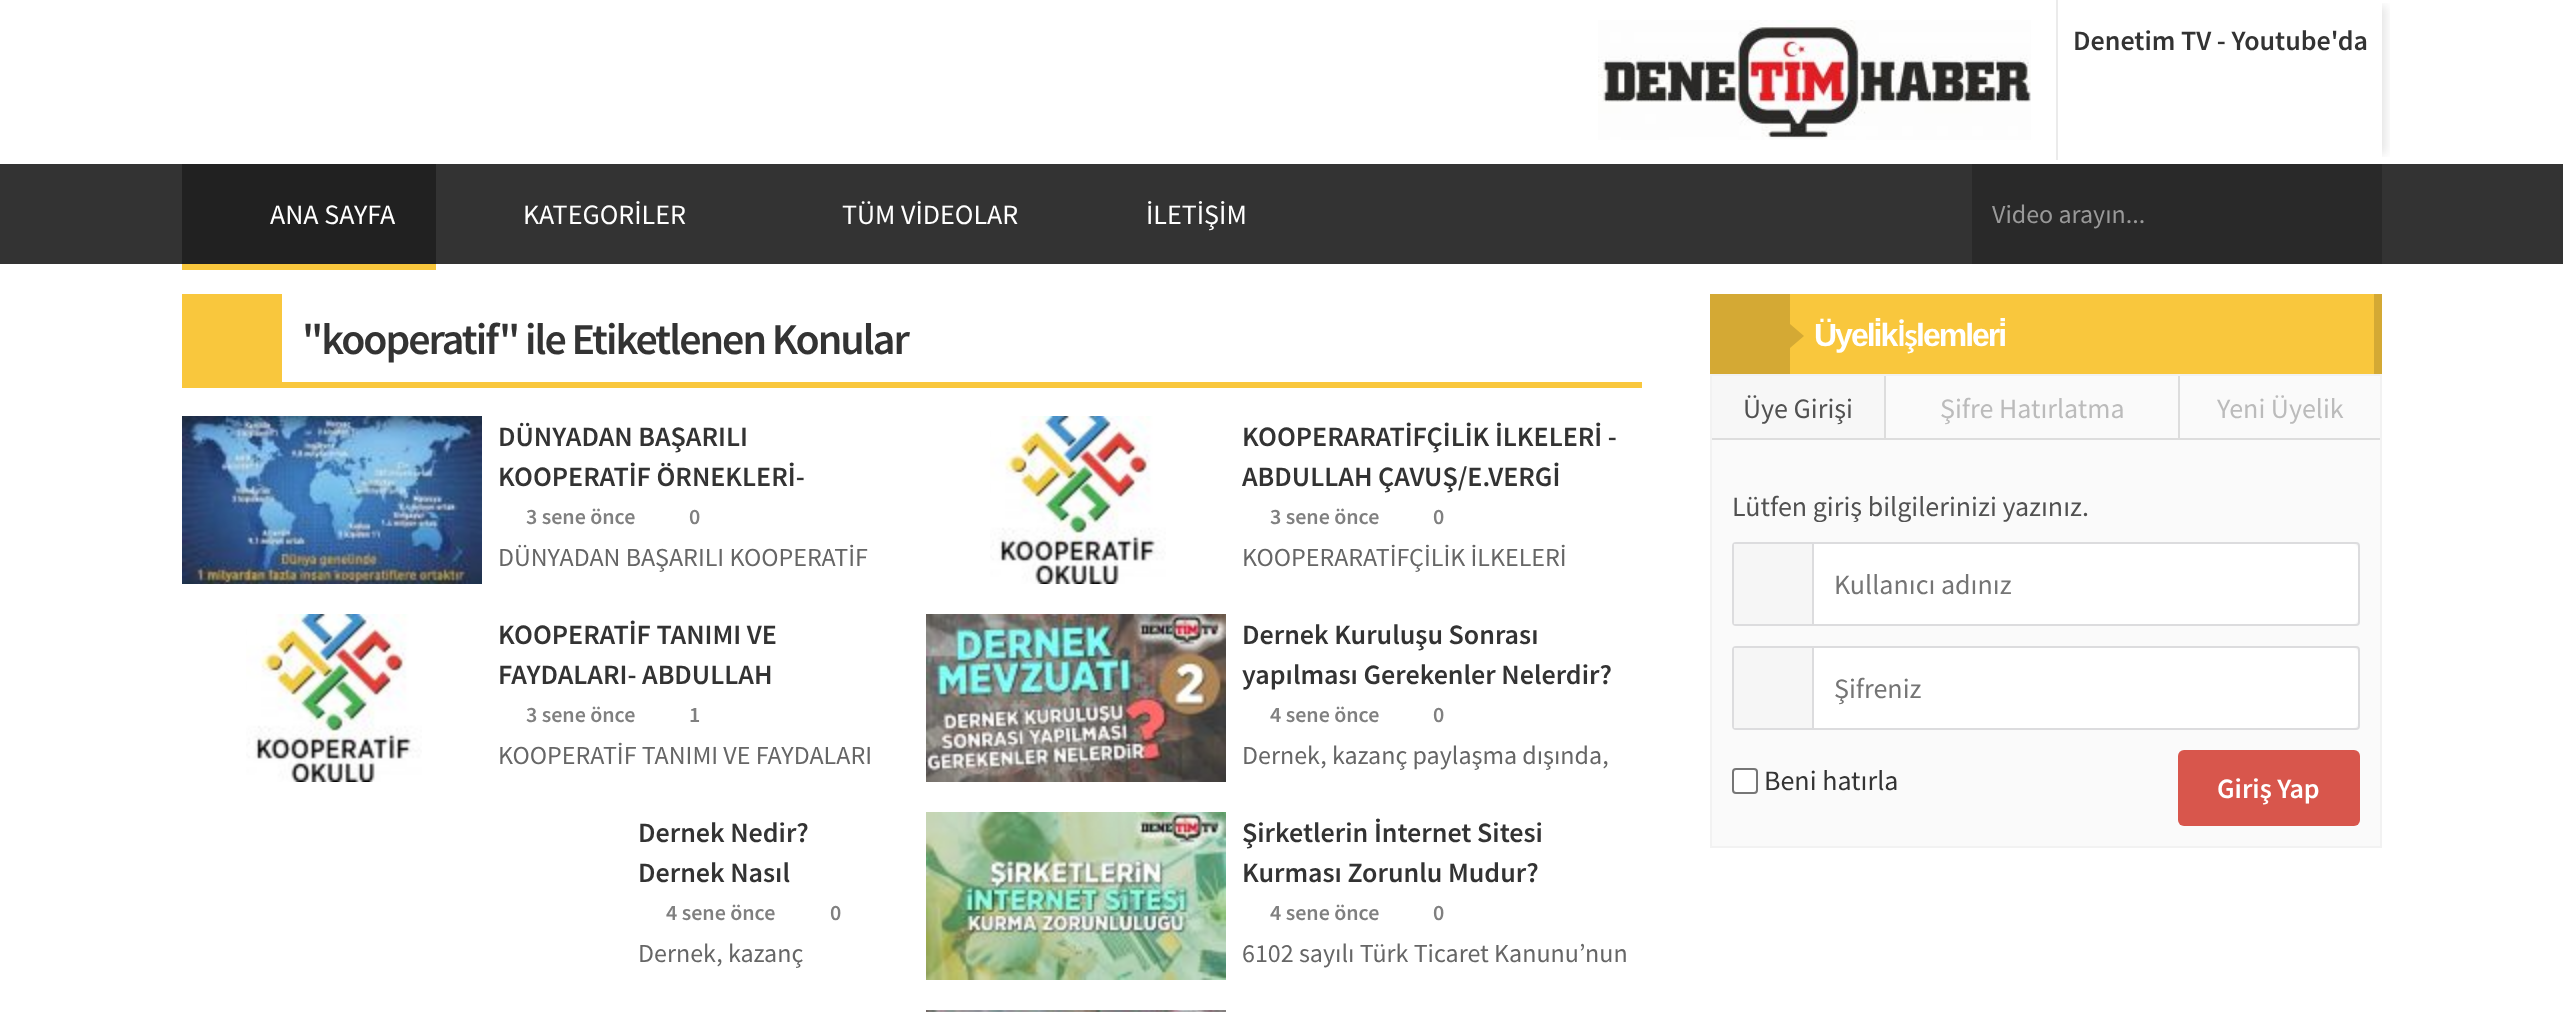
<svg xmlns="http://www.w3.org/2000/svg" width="2563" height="1012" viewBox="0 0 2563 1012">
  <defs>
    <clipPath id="clip1"><path d="M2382 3h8v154H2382z"/></clipPath>
    <clipPath id="clip2"><path d="M1732 490h628v32H1732z"/></clipPath>
  </defs>
  <rect width="100%" height="100%" fill="#fff"/>
  <image x="1598" y="20" width="433" height="120" href="img/1.png"/>
  <path d="M0 164h2563v100H0z" fill="#333"/>
  <g clip-path="url(#clip1)">
    <path d="M2072 6h314v148H2072z" fill="#0000001a" filter="blur(5px)"/>
  </g>
  <path d="M2056 0h2v160H2056z" fill="#ebebeb"/>
  <path d="M182 164h254v100H182z" fill="#212121"/>
  <path d="M182 264h254v6H182z" fill="#f9c73d"/>
  <path d="M1972 164h410v100H1972z" fill="#292929"/>
  <path d="M182 382h1460v6H182z" fill="#f9c73d"/>
  <path d="M182 294h100v88H182z" fill="#f9c73d"/>
  <image x="182" y="416" width="300" height="168" href="img/2.png"/>
  <image x="990" y="416" width="176" height="168" href="img/3.png"/>
  <image x="246" y="614" width="176" height="168" href="img/3.png"/>
  <image x="926" y="614" width="300" height="168" href="img/4.png"/>
  <image x="926" y="812" width="300" height="168" href="img/5.png"/>
  <image x="926" y="1010" width="300" height="2" href="img/6.png"/>
  <path d="M1790 294h584v80H1790z" fill="#f9c73d"/>
  <path d="M2374 294h8v80H2374z" fill="#d4a934"/>
  <path d="M1710 294h80v80H1710z" fill="#d4a934"/>
  <path d="M1790 348V324L1804 336Z" fill="#d4a934"/>
  <path d="M1711 375h670v472H1711z" fill="#fafafa" stroke="#f2f2f2" stroke-width="2"/>
  <path d="M1712 376h172v62H1712z" fill="#f7f7f7"/>
  <path d="M1712 438h668v2H1712z" fill="#ddd"/>
  <path d="M1884 376h2v64H1884z" fill="#ddd"/>
  <path d="M2178 376h2v64H2178z" fill="#ddd"/>
  <rect x="1733" y="543" width="626" height="82" rx="3" fill="none" stroke="#dcdcde" stroke-width="2"/>
  <rect x="1734" y="544" width="624" height="80" rx="6" fill="#fff"/>
  <path d="M1734 544h78v80H1734z" fill="#f6f6f6"/>
  <path d="M1812 544h2v80H1812z" fill="#dcdcde"/>
  <rect x="1733" y="647" width="626" height="82" rx="3" fill="none" stroke="#dcdcde" stroke-width="2"/>
  <rect x="1734" y="648" width="624" height="80" rx="6" fill="#fff"/>
  <path d="M1734 648h78v80H1734z" fill="#f6f6f6"/>
  <path d="M1812 648h2v80H1812z" fill="#dcdcde"/>
  <rect x="1733" y="769" width="24" height="24" rx="3" fill="#fff" stroke="#767676" stroke-width="2"/>
  <rect x="2178" y="750" width="182" height="76" rx="6" fill="#d8564c"/>
  <text x="2073" y="50" font-family="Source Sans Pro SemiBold" font-size="28" font-weight="600" fill="#333">Denetim TV - Youtube'da</text>
  <g font-family="Source Sans Pro" font-size="28" fill="#fff">
    <text x="270" y="224">ANA SAYFA</text>
    <text x="523" y="224">KATEGORİLER</text>
    <text x="842" y="224">TÜM VİDEOLAR</text>
    <text x="1146" y="224">İLETİŞİM</text>
  </g>
  <text x="1992" y="223" font-family="Source Sans Pro" font-size="26" fill="#999">Video arayın...</text>
  <text x="302" y="354" font-family="Source Sans Pro SemiBold" font-size="44" font-weight="600" letter-spacing="-2" fill="#333">"kooperatif" ile Etiketlenen Konular</text>
  <g font-family="Source Sans Pro SemiBold" font-size="28" font-weight="600" fill="#333">
    <text x="498" y="446">DÜNYADAN BAŞARILI</text>
    <text x="498" y="486">KOOPERATİF ÖRNEKLERİ-</text>
  </g>
  <g font-family="Source Sans Pro SemiBold" font-size="22" font-weight="600" fill="#808080">
    <text x="526" y="524">3 sene önce</text>
    <text x="689" y="524">0</text>
  </g>
  <text x="498" y="566" font-family="Source Sans Pro" font-size="26" fill="#666">DÜNYADAN BAŞARILI KOOPERATİF</text>
  <g font-family="Source Sans Pro SemiBold" font-size="28" font-weight="600" fill="#333">
    <text x="1242" y="446">KOOPERARATİFÇİLİK İLKELERİ -</text>
    <text x="1242" y="486">ABDULLAH ÇAVUŞ/E.VERGİ</text>
  </g>
  <g font-family="Source Sans Pro SemiBold" font-size="22" font-weight="600" fill="#808080">
    <text x="1270" y="524">3 sene önce</text>
    <text x="1433" y="524">0</text>
  </g>
  <text x="1242" y="566" font-family="Source Sans Pro" font-size="26" fill="#666">KOOPERARATİFÇİLİK İLKELERİ</text>
  <g font-family="Source Sans Pro SemiBold" font-size="28" font-weight="600" fill="#333">
    <text x="498" y="644">KOOPERATİF TANIMI VE</text>
    <text x="498" y="684">FAYDALARI- ABDULLAH</text>
  </g>
  <g font-family="Source Sans Pro SemiBold" font-size="22" font-weight="600" fill="#808080">
    <text x="526" y="722">3 sene önce</text>
    <text x="689" y="722">1</text>
  </g>
  <text x="498" y="764" font-family="Source Sans Pro" font-size="26" fill="#666">KOOPERATİF TANIMI VE FAYDALARI</text>
  <g font-family="Source Sans Pro SemiBold" font-size="28" font-weight="600" fill="#333">
    <text x="1242" y="644">Dernek Kuruluşu Sonrası</text>
    <text x="1242" y="684">yapılması Gerekenler Nelerdir?</text>
  </g>
  <g font-family="Source Sans Pro SemiBold" font-size="22" font-weight="600" fill="#808080">
    <text x="1270" y="722">4 sene önce</text>
    <text x="1433" y="722">0</text>
  </g>
  <text x="1242" y="764" font-family="Source Sans Pro" font-size="26" fill="#666">Dernek, kazanç paylaşma dışında,</text>
  <g font-family="Source Sans Pro SemiBold" font-size="28" font-weight="600" fill="#333">
    <text x="638" y="842">Dernek Nedir?</text>
    <text x="638" y="882">Dernek Nasıl</text>
  </g>
  <g font-family="Source Sans Pro SemiBold" font-size="22" font-weight="600" fill="#808080">
    <text x="666" y="920">4 sene önce</text>
    <text x="830" y="920">0</text>
  </g>
  <text x="638" y="962" font-family="Source Sans Pro" font-size="26" fill="#666">Dernek, kazanç</text>
  <g font-family="Source Sans Pro SemiBold" font-size="28" font-weight="600" fill="#333">
    <text x="1242" y="842">Şirketlerin İnternet Sitesi</text>
    <text x="1242" y="882">Kurması Zorunlu Mudur?</text>
  </g>
  <g font-family="Source Sans Pro SemiBold" font-size="22" font-weight="600" fill="#808080">
    <text x="1270" y="920">4 sene önce</text>
    <text x="1433" y="920">0</text>
  </g>
  <text x="1242" y="962" font-family="Source Sans Pro" font-size="26" fill="#666">6102 sayılı Türk Ticaret Kanunu’nun</text>
  <text x="1814" y="346" font-family="Liberation Sans" font-size="32" font-weight="bold" letter-spacing="-2" fill="#fff">Üyeli̇k</text>
  <text x="1897" y="346" font-family="Source Sans Pro SemiBold" font-size="32" font-weight="600" letter-spacing="-2" fill="#fff">İş</text>
  <text x="1916" y="346" font-family="Liberation Sans" font-size="32" font-weight="bold" letter-spacing="-2" fill="#fff">lemleri̇</text>
  <text x="1743" y="418" font-family="Source Sans Pro" font-size="28" fill="#515151">Üye Girişi</text>
  <g font-family="Source Sans Pro" font-size="28" fill="#bbb">
    <text x="1940" y="418">Şifre Hatırlatma</text>
    <text x="2217" y="418">Yeni Üyelik</text>
  </g>
  <g clip-path="url(#clip2)">
    <text x="1732" y="516" font-family="Source Sans Pro" font-size="28" fill="#515151">Lütfen giriş bilgilerinizi yazınız.</text>
  </g>
  <g font-family="Source Sans Pro" font-size="28" fill="#757575">
    <text x="1834" y="594">Kullanıcı adınız</text>
    <text x="1834" y="698">Şifreniz</text>
  </g>
  <text x="1764" y="790" font-family="Source Sans Pro" font-size="28" fill="#333">Beni hatırla</text>
  <text x="2217" y="798" font-family="Source Sans Pro SemiBold" font-size="28" font-weight="600" fill="#fff">Giriş Yap</text>
</svg>
